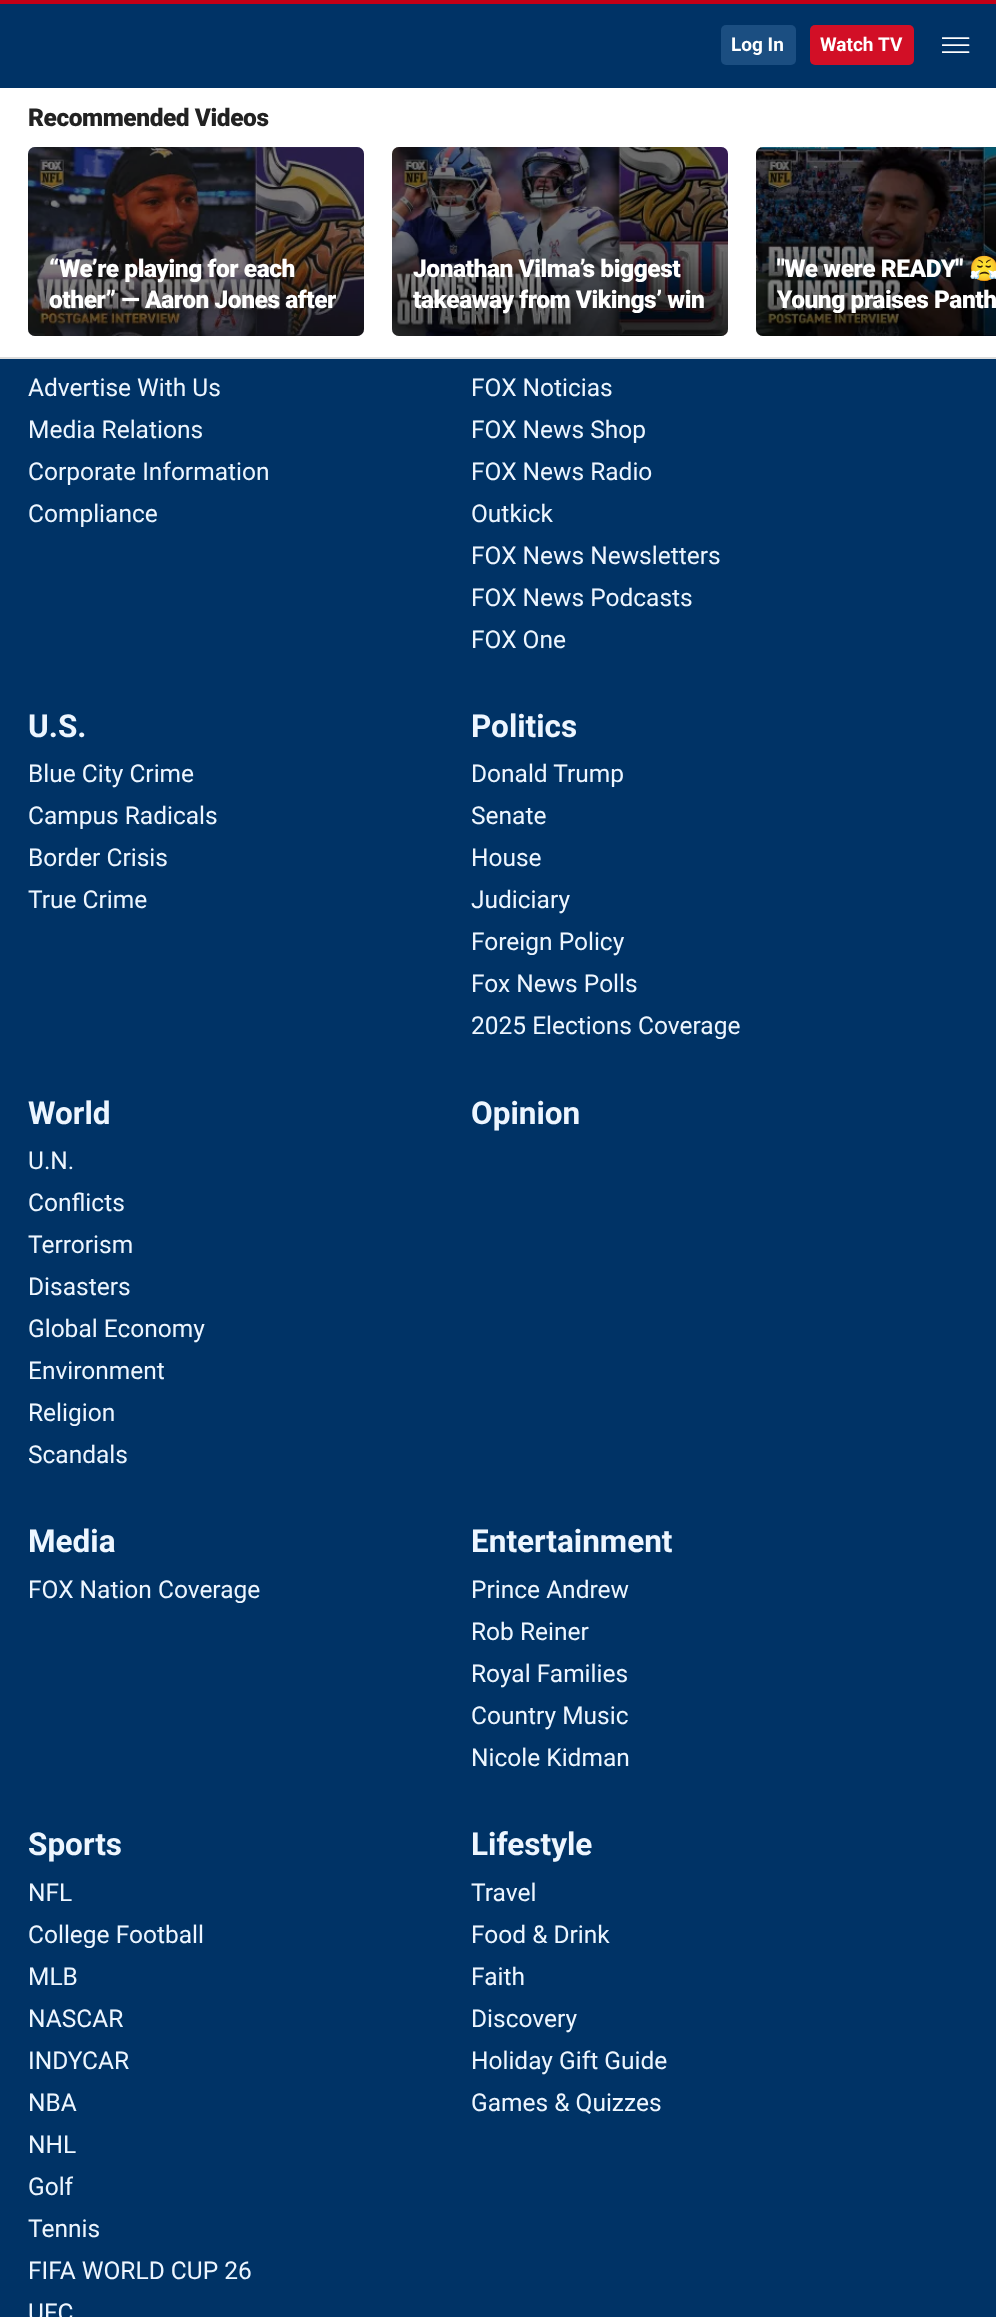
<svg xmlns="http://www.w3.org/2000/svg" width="996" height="2317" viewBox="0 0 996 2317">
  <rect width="100%" height="100%" fill="#036"/>
  <path d="M0 0h996v4H0z" fill="#c20017"/>
  <rect x="721" y="25" width="75" height="40" rx="5" fill="#1b4e81"/>
  <rect x="810" y="25" width="104" height="40" rx="5" fill="#d20f26"/>
  <image x="942" y="37" width="28" height="16" href="img/1.png"/>
  <path d="M0 88h996v269H0z" fill="#fff"/>
  <path d="M0 357h996v2H0z" fill="#ddd"/>
  <image x="28" y="147" width="336" height="189" href="img/2.png"/>
  <rect x="28" y="147" width="336" height="189" rx="7" fill="#00000080"/>
  <image x="392" y="147" width="336" height="189" href="img/3.png"/>
  <rect x="392" y="147" width="336" height="189" rx="7" fill="#00000080"/>
  <image x="756" y="147" width="240" height="189" href="img/4.png"/>
  <path d="M763 147H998V336H763C759 336 756 333 756 329V154C756 150 759 147 763 147Z" fill="#00000080"/>
  <g font-family="Roboto" font-size="19" font-weight="bold" fill="#fff">
    <text x="731" y="51">Log In</text>
    <text x="820" y="51">Watch</text>
    <text x="878" y="51">TV</text>
  </g>
  <text x="28" y="126" font-family="Roboto" font-size="24.5" font-weight="900" letter-spacing="-0.45" fill="#222">Recommended Videos</text>
  <g font-family="Roboto" font-size="24.5" font-weight="900" letter-spacing="-0.45" fill="#fff">
    <text x="49" y="277">“We’re playing for each</text>
    <text x="49" y="308">other” — Aaron Jones after</text>
    <text x="413" y="277">Jonathan Vilma’s biggest</text>
    <text x="413" y="308">takeaway from Vikings’ win</text>
    <text x="777" y="277">"We were READY"</text>
  </g>
  <text x="969" y="277" font-family="Noto Color Emoji" font-size="24.5" font-weight="bold" letter-spacing="-0.45" fill="#fff">😤</text>
  <text x="777" y="308" font-family="Roboto" font-size="24.5" font-weight="900" letter-spacing="-0.45" fill="#fff">Young praises Panth</text>
  <g font-family="Roboto" font-size="24.5" fill="#edf6ff">
    <text x="28" y="396">Advertise With Us</text>
    <text x="28" y="438">Media Relations</text>
    <text x="28" y="480">Corporate Information</text>
    <text x="28" y="522">Compliance</text>
    <text x="471" y="396">FOX Noticias</text>
    <text x="471" y="438">FOX News Shop</text>
    <text x="471" y="480">FOX News Radio</text>
    <text x="471" y="522">Outkick</text>
    <text x="471" y="564">FOX News Newsletters</text>
    <text x="471" y="606">FOX News Podcasts</text>
    <text x="471" y="648">FOX One</text>
  </g>
  <text x="28" y="737" font-family="Roboto" font-size="31.5" font-weight="bold" fill="#edf6ff">U.S.</text>
  <g font-family="Roboto" font-size="24.5" fill="#edf6ff">
    <text x="28" y="782">Blue City Crime</text>
    <text x="28" y="824">Campus Radicals</text>
    <text x="28" y="866">Border Crisis</text>
    <text x="28" y="908">True Crime</text>
  </g>
  <text x="471" y="737" font-family="Roboto" font-size="31.5" font-weight="bold" fill="#edf6ff">Politics</text>
  <g font-family="Roboto" font-size="24.5" fill="#edf6ff">
    <text x="471" y="782">Donald Trump</text>
    <text x="471" y="824">Senate</text>
    <text x="471" y="866">House</text>
    <text x="471" y="908">Judiciary</text>
    <text x="471" y="950">Foreign Policy</text>
    <text x="471" y="992">Fox News Polls</text>
    <text x="471" y="1034">2025 Elections Coverage</text>
  </g>
  <text x="28" y="1124" font-family="Roboto" font-size="31.5" font-weight="bold" fill="#edf6ff">World</text>
  <g font-family="Roboto" font-size="24.5" fill="#edf6ff">
    <text x="28" y="1169">U.N.</text>
    <text x="28" y="1211">Conflicts</text>
    <text x="28" y="1253">Terrorism</text>
    <text x="28" y="1295">Disasters</text>
    <text x="28" y="1337">Global Economy</text>
    <text x="28" y="1379">Environment</text>
    <text x="28" y="1421">Religion</text>
    <text x="28" y="1463">Scandals</text>
  </g>
  <g font-family="Roboto" font-size="31.5" font-weight="bold" fill="#edf6ff">
    <text x="471" y="1124">Opinion</text>
    <text x="28" y="1552">Media</text>
  </g>
  <text x="28" y="1598" font-family="Roboto" font-size="24.5" fill="#edf6ff">FOX Nation Coverage</text>
  <text x="471" y="1552" font-family="Roboto" font-size="31.5" font-weight="bold" fill="#edf6ff">Entertainment</text>
  <g font-family="Roboto" font-size="24.5" fill="#edf6ff">
    <text x="471" y="1598">Prince Andrew</text>
    <text x="471" y="1640">Rob Reiner</text>
    <text x="471" y="1682">Royal Families</text>
    <text x="471" y="1724">Country Music</text>
    <text x="471" y="1766">Nicole Kidman</text>
  </g>
  <text x="28" y="1855" font-family="Roboto" font-size="31.5" font-weight="bold" fill="#edf6ff">Sports</text>
  <g font-family="Roboto" font-size="24.5" fill="#edf6ff">
    <text x="28" y="1901">NFL</text>
    <text x="28" y="1943">College Football</text>
    <text x="28" y="1985">MLB</text>
    <text x="28" y="2027">NASCAR</text>
    <text x="28" y="2069">INDYCAR</text>
    <text x="28" y="2111">NBA</text>
    <text x="28" y="2153">NHL</text>
    <text x="28" y="2195">Golf</text>
    <text x="28" y="2237">Tennis</text>
    <text x="28" y="2279">FIFA WORLD CUP 26</text>
    <text x="28" y="2321">UFC</text>
  </g>
  <text x="471" y="1855" font-family="Roboto" font-size="31.5" font-weight="bold" fill="#edf6ff">Lifestyle</text>
  <g font-family="Roboto" font-size="24.5" fill="#edf6ff">
    <text x="471" y="1901">Travel</text>
    <text x="471" y="1943">Food &amp; Drink</text>
    <text x="471" y="1985">Faith</text>
    <text x="471" y="2027">Discovery</text>
    <text x="471" y="2069">Holiday Gift Guide</text>
    <text x="471" y="2111">Games &amp; Quizzes</text>
  </g>
</svg>
